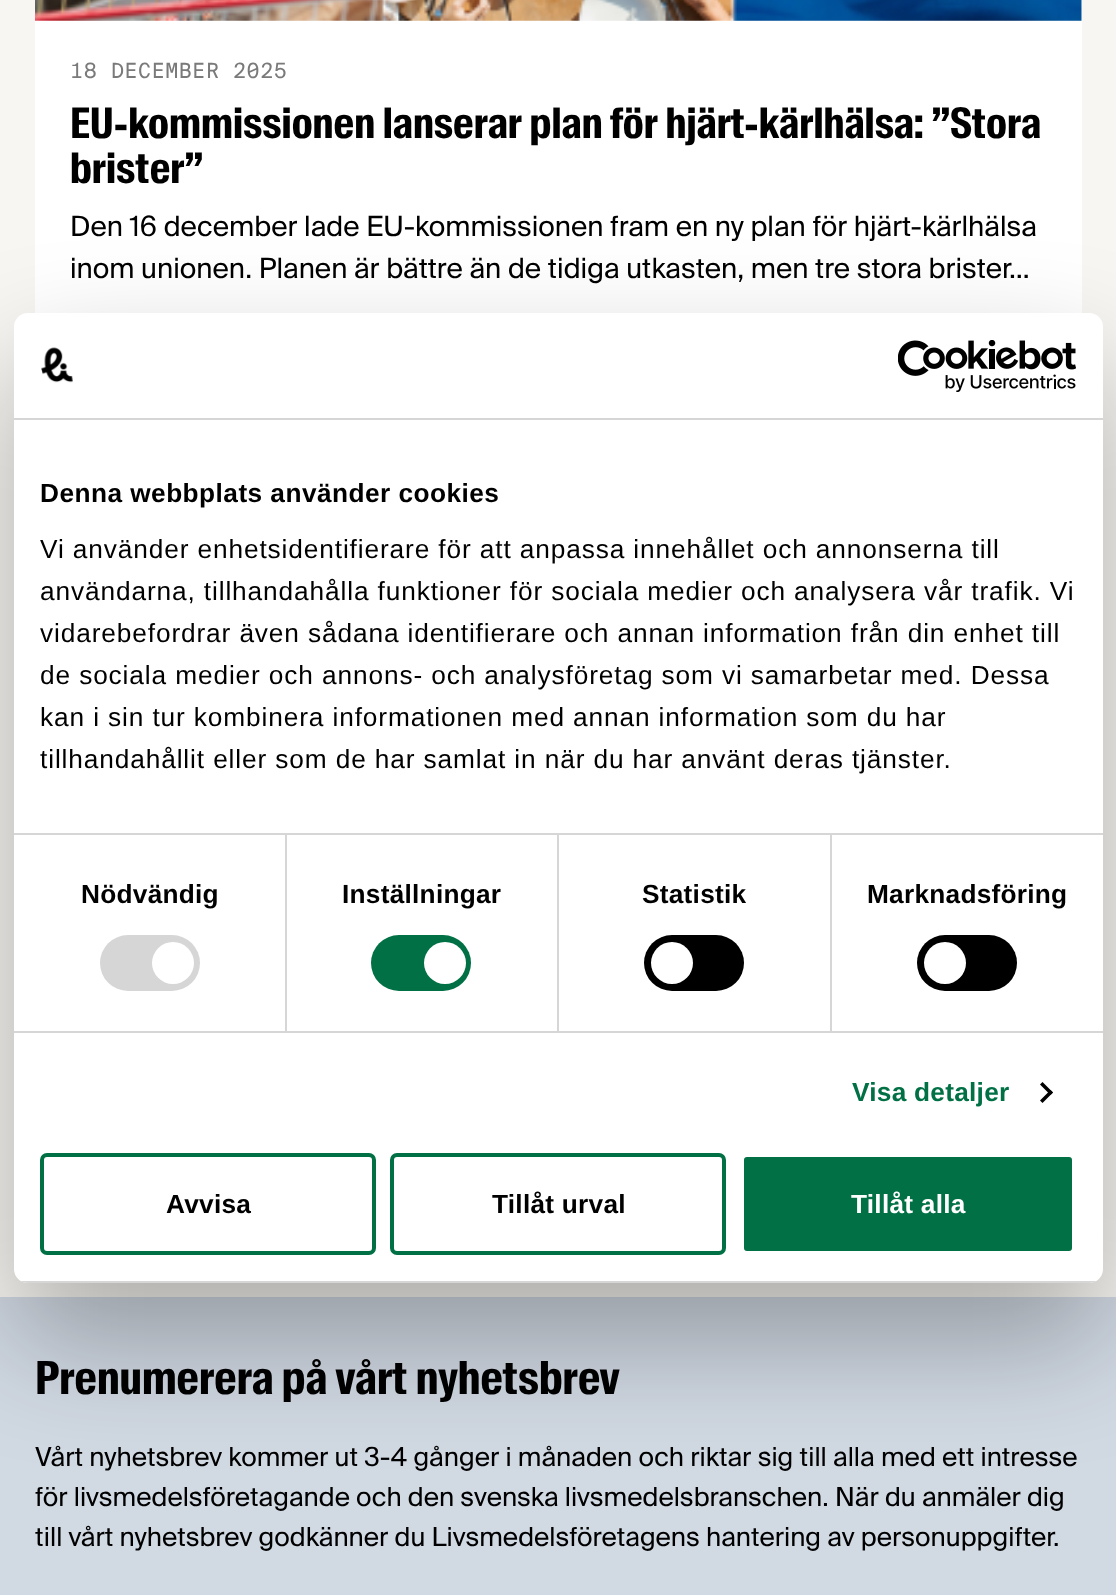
<svg xmlns="http://www.w3.org/2000/svg" width="1116" height="1595" viewBox="0 0 1116 1595">
  <defs>
    <clipPath id="clip1"><rect x="14" y="313" width="1089" height="970" rx="14"/></clipPath>
  </defs>
  <rect width="100%" height="100%" fill="#f8f6f2"/>
  <path d="M35 0h1047v313H35z" fill="#fff"/>
  <image x="35" y="0" width="1047" height="21" href="img/1.png"/>
  <path d="M0 1297h1116v298H0z" fill="#d1d9e3"/>
  <rect x="14" y="369" width="1089" height="970" rx="14" fill="#0000004d" filter="blur(59.5px)"/>
  <rect x="14" y="313" width="1089" height="970" rx="14" fill="#fff"/>
  <path d="M14 418h1089v2H14z" fill="#d6d6d6"/>
  <image x="41" y="347" width="32" height="36" href="img/2.png"/>
  <image x="898" y="340" width="178" height="52" href="img/3.png"/>
  <path d="M14 833h1089v2H14z" fill="#d6d6d6"/>
  <path d="M14 1031h1089v2H14z" fill="#d6d6d6"/>
  <path d="M285 835h2v196H285z" fill="#d6d6d6"/>
  <rect x="100" y="935" width="100" height="56" rx="28" fill="#d6d6d6"/>
  <circle cx="173" cy="963" r="21" fill="#fff"/>
  <path d="M557 835h2v196H557z" fill="#d6d6d6"/>
  <rect x="371" y="935" width="100" height="56" rx="28" fill="#017045"/>
  <circle cx="445" cy="963" r="21" fill="#fff"/>
  <path d="M830 835h2v196H830z" fill="#d6d6d6"/>
  <rect x="644" y="935" width="100" height="56" rx="28" fill="#000"/>
  <circle cx="672" cy="963" r="21" fill="#fff"/>
  <rect x="917" y="935" width="100" height="56" rx="28" fill="#000"/>
  <circle cx="945" cy="963" r="21" fill="#fff"/>
  <path d="M1042.5 1082L1053 1092.5L1050.5 1095L1040 1084.5Z" fill="#000"/>
  <path d="M1050.5 1090L1053 1092.5L1042.5 1103L1040 1100.5Z" fill="#000"/>
  <g clip-path="url(#clip1)">
    <path d="M14 1281h1089v2H14z" fill="#d6d6d6"/>
  </g>
  <rect x="42" y="1155" width="332" height="98" rx="5" fill="none" stroke="#017045" stroke-width="4"/>
  <rect x="392" y="1155" width="332" height="98" rx="5" fill="none" stroke="#017045" stroke-width="4"/>
  <rect x="742" y="1155" width="332" height="98" rx="5" fill="#017045" stroke="#fff" stroke-width="4"/>
  <text x="70" y="78" font-family="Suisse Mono" font-size="21" fill="#7a7a7a">18 DECEMBER 2025</text>
  <g font-family="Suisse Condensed" font-size="42" font-weight="bold" fill="#000">
    <text x="70" y="138">EU-kommissionen lanserar plan för hjärt-kärlhälsa: ”Stora</text>
    <text x="70" y="183">brister”</text>
  </g>
  <g font-family="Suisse" font-size="28" fill="#000">
    <text x="70" y="236">Den 16 december lade EU-kommissionen fram en ny plan för hjärt-kärlhälsa</text>
    <text x="70" y="278">inom unionen. Planen är bättre än de tidiga utkasten, men tre stora brister…</text>
  </g>
  <text x="35" y="1394" font-family="Suisse Condensed" font-size="45.5" font-weight="bold" fill="#000">Prenumerera på vårt nyhetsbrev</text>
  <g font-family="Suisse" font-size="26.25" fill="#000">
    <text x="35" y="1466">Vårt nyhetsbrev kommer ut 3-4 gånger i månaden och riktar sig till alla med ett intresse</text>
    <text x="35" y="1506">för livsmedelsföretagande och den svenska livsmedelsbranschen. När du anmäler dig</text>
    <text x="35" y="1546">till vårt nyhetsbrev godkänner du Livsmedelsföretagens hantering av personuppgifter.</text>
  </g>
  <text x="40" y="502" font-family="Liberation Sans" font-size="26.25" font-weight="bold" letter-spacing="0.45" fill="#000">Denna webbplats använder cookies</text>
  <g font-family="Liberation Sans" font-size="26.25" letter-spacing="0.88" fill="#000">
    <text x="40" y="558">Vi använder enhetsidentifierare för att anpassa innehållet och annonserna till</text>
    <text x="40" y="600">användarna, tillhandahålla funktioner för sociala medier och analysera vår trafik. Vi</text>
    <text x="40" y="642">vidarebefordrar även sådana identifierare och annan information från din enhet till</text>
    <text x="40" y="684">de sociala medier och annons- och analysföretag som vi samarbetar med. Dessa</text>
    <text x="40" y="726">kan i sin tur kombinera informationen med annan information som du har</text>
    <text x="40" y="768">tillhandahållit eller som de har samlat in när du har använt deras tjänster.</text>
  </g>
  <g font-family="Liberation Sans" font-size="26.25" font-weight="bold" letter-spacing="0.25" fill="#000">
    <text x="81" y="903">Nödvändig</text>
    <text x="342" y="903">Inställningar</text>
    <text x="642" y="903">Statistik</text>
    <text x="867" y="903">Marknadsföring</text>
  </g>
  <text x="852" y="1101" font-family="Liberation Sans" font-size="26.25" font-weight="bold" letter-spacing="0.25" fill="#017045">Visa detaljer</text>
  <g font-family="Liberation Sans" font-size="26.25" font-weight="bold" letter-spacing="0.25" fill="#000">
    <text x="166" y="1213">Avvisa</text>
    <text x="492" y="1213">Tillåt urval</text>
  </g>
  <text x="851" y="1213" font-family="Liberation Sans" font-size="26.25" font-weight="bold" letter-spacing="0.25" fill="#fff">Tillåt alla</text>
</svg>
